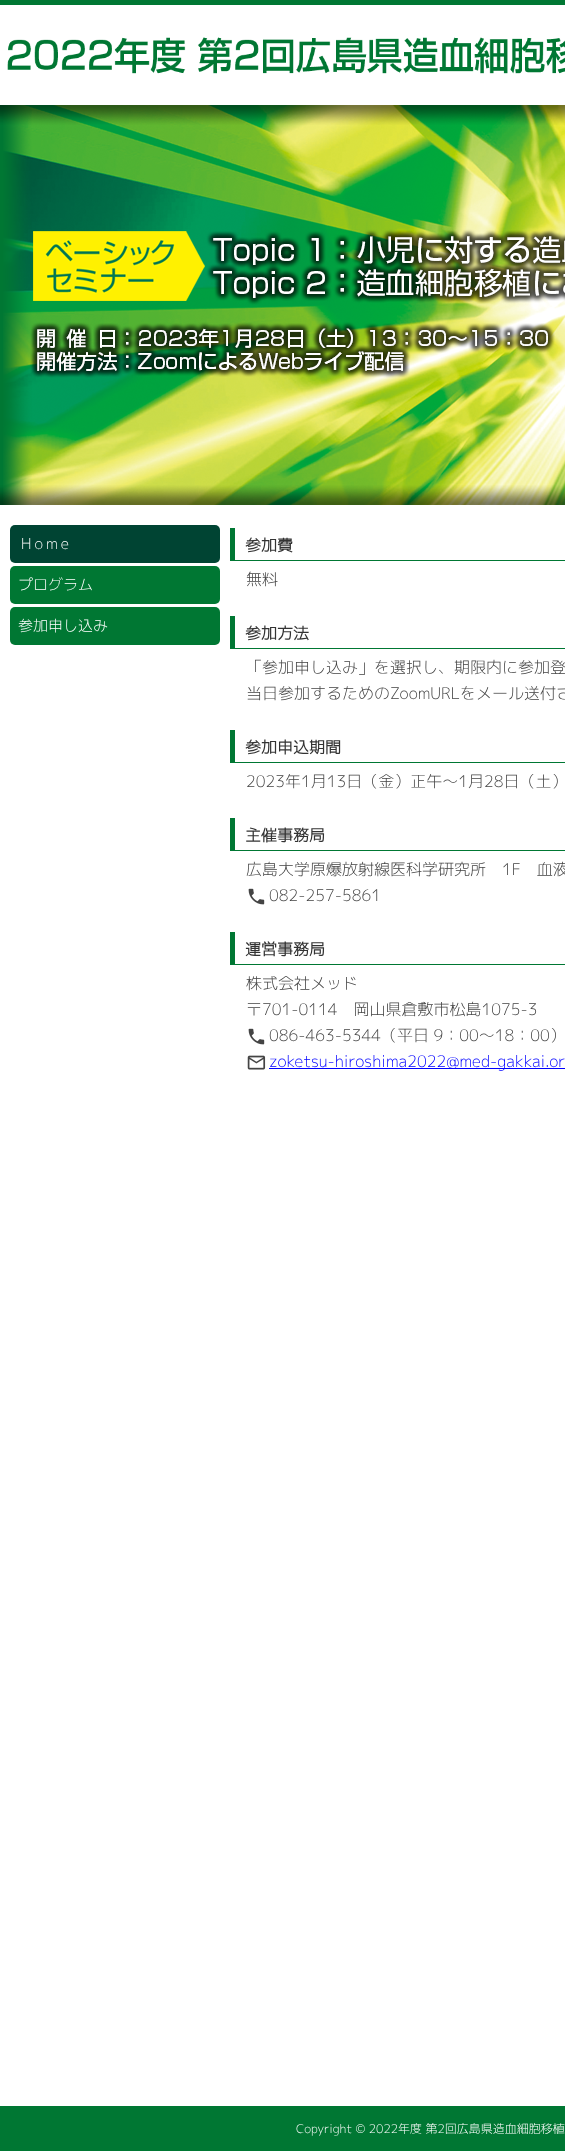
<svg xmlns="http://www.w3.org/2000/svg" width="565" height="2151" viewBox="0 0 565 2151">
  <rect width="100%" height="100%" fill="#fff"/>
  <path d="M0 0h565v5H0z" fill="#073"/>
  <image x="7" y="37" width="558" height="37" href="img/1.png"/>
  <image x="0" y="105" width="3" height="400" href="img/2.png"/>
  <image x="3" y="105" width="562" height="400" href="img/3.png"/>
  <rect x="10" y="525" width="210" height="38" rx="5" fill="#043"/>
  <rect x="10" y="566" width="210" height="38" rx="5" fill="#073"/>
  <rect x="10" y="607" width="210" height="38" rx="5" fill="#073"/>
  <path d="M230 560h335v1H230z" fill="#073"/>
  <path d="M230 528h5v33H230z" fill="#073"/>
  <path d="M230 648h335v1H230z" fill="#073"/>
  <path d="M230 616h5v33H230z" fill="#073"/>
  <path d="M230 762h335v1H230z" fill="#073"/>
  <path d="M230 730h5v33H230z" fill="#073"/>
  <path d="M230 850h335v1H230z" fill="#073"/>
  <path d="M230 818h5v33H230z" fill="#073"/>
  <image x="248" y="888" width="17" height="17" href="img/4.png"/>
  <path d="M230 964h335v1H230z" fill="#073"/>
  <path d="M230 932h5v33H230z" fill="#073"/>
  <image x="248" y="1028" width="17" height="17" href="img/4.png"/>
  <image x="247" y="1055" width="19" height="15" href="img/5.png"/>
  <path d="M269 1068h296v1H269z" fill="#00f"/>
  <path d="M0 2106h565v45H0z" fill="#073"/>
  <text x="21" y="549" font-family="'M PLUS 1p'" font-size="15" font-weight="300" letter-spacing="3" fill="#fff">Home</text>
  <g font-family="'M PLUS 1p'" font-size="15" font-weight="300" fill="#fff">
    <text x="18" y="590">プログラム</text>
    <text x="18" y="631">参加申し込み</text>
  </g>
  <text x="245" y="551" font-family="'M PLUS 1p'" font-size="16" font-weight="bold" fill="#333">参加費</text>
  <text x="246" y="585" font-family="'M PLUS 1p'" font-size="16" font-weight="300" fill="#444">無料</text>
  <text x="245" y="639" font-family="'M PLUS 1p'" font-size="16" font-weight="bold" fill="#333">参加方法</text>
  <g font-family="'M PLUS 1p'" font-size="16" font-weight="300" fill="#444">
    <text x="246" y="673">「参加申し込み」を選択し、期限内に参加登</text>
    <text x="246" y="699">当日参加するためのZoomURLをメール送付さ</text>
  </g>
  <text x="245" y="753" font-family="'M PLUS 1p'" font-size="16" font-weight="bold" fill="#333">参加申込期間</text>
  <text x="246" y="787" font-family="'M PLUS 1p'" font-size="16" font-weight="300" fill="#444">2023年1月13日（金）正午〜1月28日（土）</text>
  <text x="245" y="841" font-family="'M PLUS 1p'" font-size="16" font-weight="bold" fill="#333">主催事務局</text>
  <g font-family="'M PLUS 1p'" font-size="16" font-weight="300" fill="#444">
    <text x="246" y="875">広島大学原爆放射線医科学研究所　1F　血液</text>
    <text x="269" y="901">082-257-5861</text>
  </g>
  <text x="245" y="955" font-family="'M PLUS 1p'" font-size="16" font-weight="bold" fill="#333">運営事務局</text>
  <g font-family="'M PLUS 1p'" font-size="16" font-weight="300" fill="#444">
    <text x="246" y="989">株式会社メッド</text>
    <text x="246" y="1015">〒701-0114　岡山県倉敷市松島1075-3</text>
    <text x="269" y="1041">086-463-5344（平日 9：00～18：00）</text>
  </g>
  <text x="269" y="1067" font-family="'M PLUS 1p'" font-size="16" font-weight="300" fill="#00f">zoketsu-hiroshima2022@med-gakkai.or</text>
  <text x="296" y="2133" font-family="'M PLUS 1p'" font-size="12" font-weight="300" fill="#fff">Copyright © 2022年度 第2回広島県造血細胞移植</text>
</svg>
